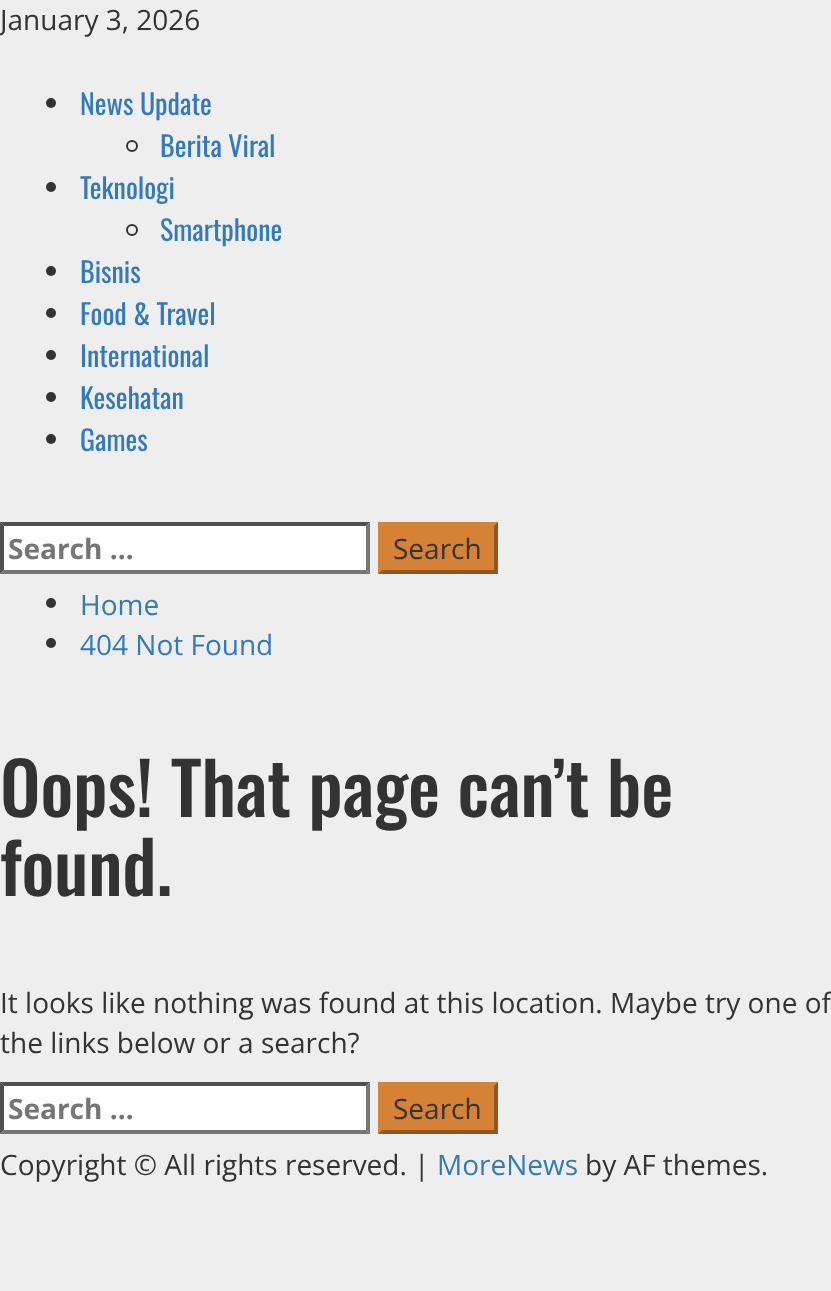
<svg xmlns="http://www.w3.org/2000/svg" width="831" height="1291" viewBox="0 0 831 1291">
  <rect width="100%" height="100%" fill="#eee"/>
  <circle cx="51" cy="103" r="5" fill="#333"/>
  <circle cx="132" cy="146" r="5" fill="none" stroke="#333" stroke-width="2"/>
  <circle cx="51" cy="187" r="5" fill="#333"/>
  <circle cx="132" cy="230" r="5" fill="none" stroke="#333" stroke-width="2"/>
  <circle cx="51" cy="271" r="5" fill="#333"/>
  <circle cx="51" cy="313" r="5" fill="#333"/>
  <circle cx="51" cy="355" r="5" fill="#333"/>
  <circle cx="51" cy="397" r="5" fill="#333"/>
  <circle cx="51" cy="439" r="5" fill="#333"/>
  <path d="M0 522h370v52H0z" fill="#fff"/>
  <path d="M0 522H370L366 526H4Z" fill="#4f4f4f"/>
  <path d="M370 522V574L366 570V526Z" fill="#767676"/>
  <path d="M370 574H0L4 570H366Z" fill="#767676"/>
  <path d="M0 574V522L4 526V570Z" fill="#4f4f4f"/>
  <path d="M378 522h120v52H378z" fill="#d68236"/>
  <path d="M498 522V574L494 570V526Z" fill="#8f5724"/>
  <path d="M498 574H378L382 570H494Z" fill="#8f5724"/>
  <path d="M378 574V522L382 526V570Z" fill="#d68236"/>
  <circle cx="51" cy="603" r="5" fill="#333"/>
  <circle cx="51" cy="643" r="5" fill="#333"/>
  <path d="M0 1082h370v52H0z" fill="#fff"/>
  <path d="M0 1082H370L366 1086H4Z" fill="#4f4f4f"/>
  <path d="M370 1082V1134L366 1130V1086Z" fill="#767676"/>
  <path d="M370 1134H0L4 1130H366Z" fill="#767676"/>
  <path d="M0 1134V1082L4 1086V1130Z" fill="#4f4f4f"/>
  <path d="M378 1082h120v52H378z" fill="#d68236"/>
  <path d="M498 1082V1134L494 1130V1086Z" fill="#8f5724"/>
  <path d="M498 1134H378L382 1130H494Z" fill="#8f5724"/>
  <path d="M378 1134V1082L382 1086V1130Z" fill="#d68236"/>
  <text x="0" y="30" font-family="Open Sans" font-size="28" fill="#333">January 3, 2026</text>
  <g font-family="Oswald" font-size="28" fill="#337ab7">
    <text x="80" y="115">News Update</text>
    <text x="160" y="157">Berita Viral</text>
    <text x="80" y="199">Teknologi</text>
    <text x="160" y="241">Smartphone</text>
    <text x="80" y="283">Bisnis</text>
    <text x="80" y="325">Food &amp; Travel</text>
    <text x="80" y="367">International</text>
    <text x="80" y="409">Kesehatan</text>
    <text x="80" y="451">Games</text>
  </g>
  <text x="8" y="559" font-family="Open Sans" font-size="28" font-weight="bold" fill="#757575">Search …</text>
  <text x="393" y="559" font-family="Open Sans" font-size="28" fill="#333">Search</text>
  <g font-family="Open Sans" font-size="28" fill="#337ab7">
    <text x="80" y="615">Home</text>
    <text x="80" y="655">404 Not Found</text>
  </g>
  <g font-family="Oswald" font-size="72" font-weight="500" fill="#333">
    <text x="0" y="817">Oops! That page can’t be</text>
    <text x="0" y="896">found.</text>
  </g>
  <g font-family="Open Sans" font-size="28" fill="#333">
    <text x="0" y="1013">It looks like nothing was found at this location. Maybe try one of</text>
    <text x="0" y="1053">the links below or a search?</text>
  </g>
  <text x="8" y="1119" font-family="Open Sans" font-size="28" font-weight="bold" fill="#757575">Search …</text>
  <g font-family="Open Sans" font-size="28" fill="#333">
    <text x="393" y="1119">Search</text>
    <text x="0" y="1175">Copyright © All rights reserved. |</text>
  </g>
  <text x="437" y="1175" font-family="Open Sans" font-size="28" fill="#337ab7">MoreNews</text>
  <text x="585" y="1175" font-family="Open Sans" font-size="28" fill="#333">by AF themes.</text>
</svg>
